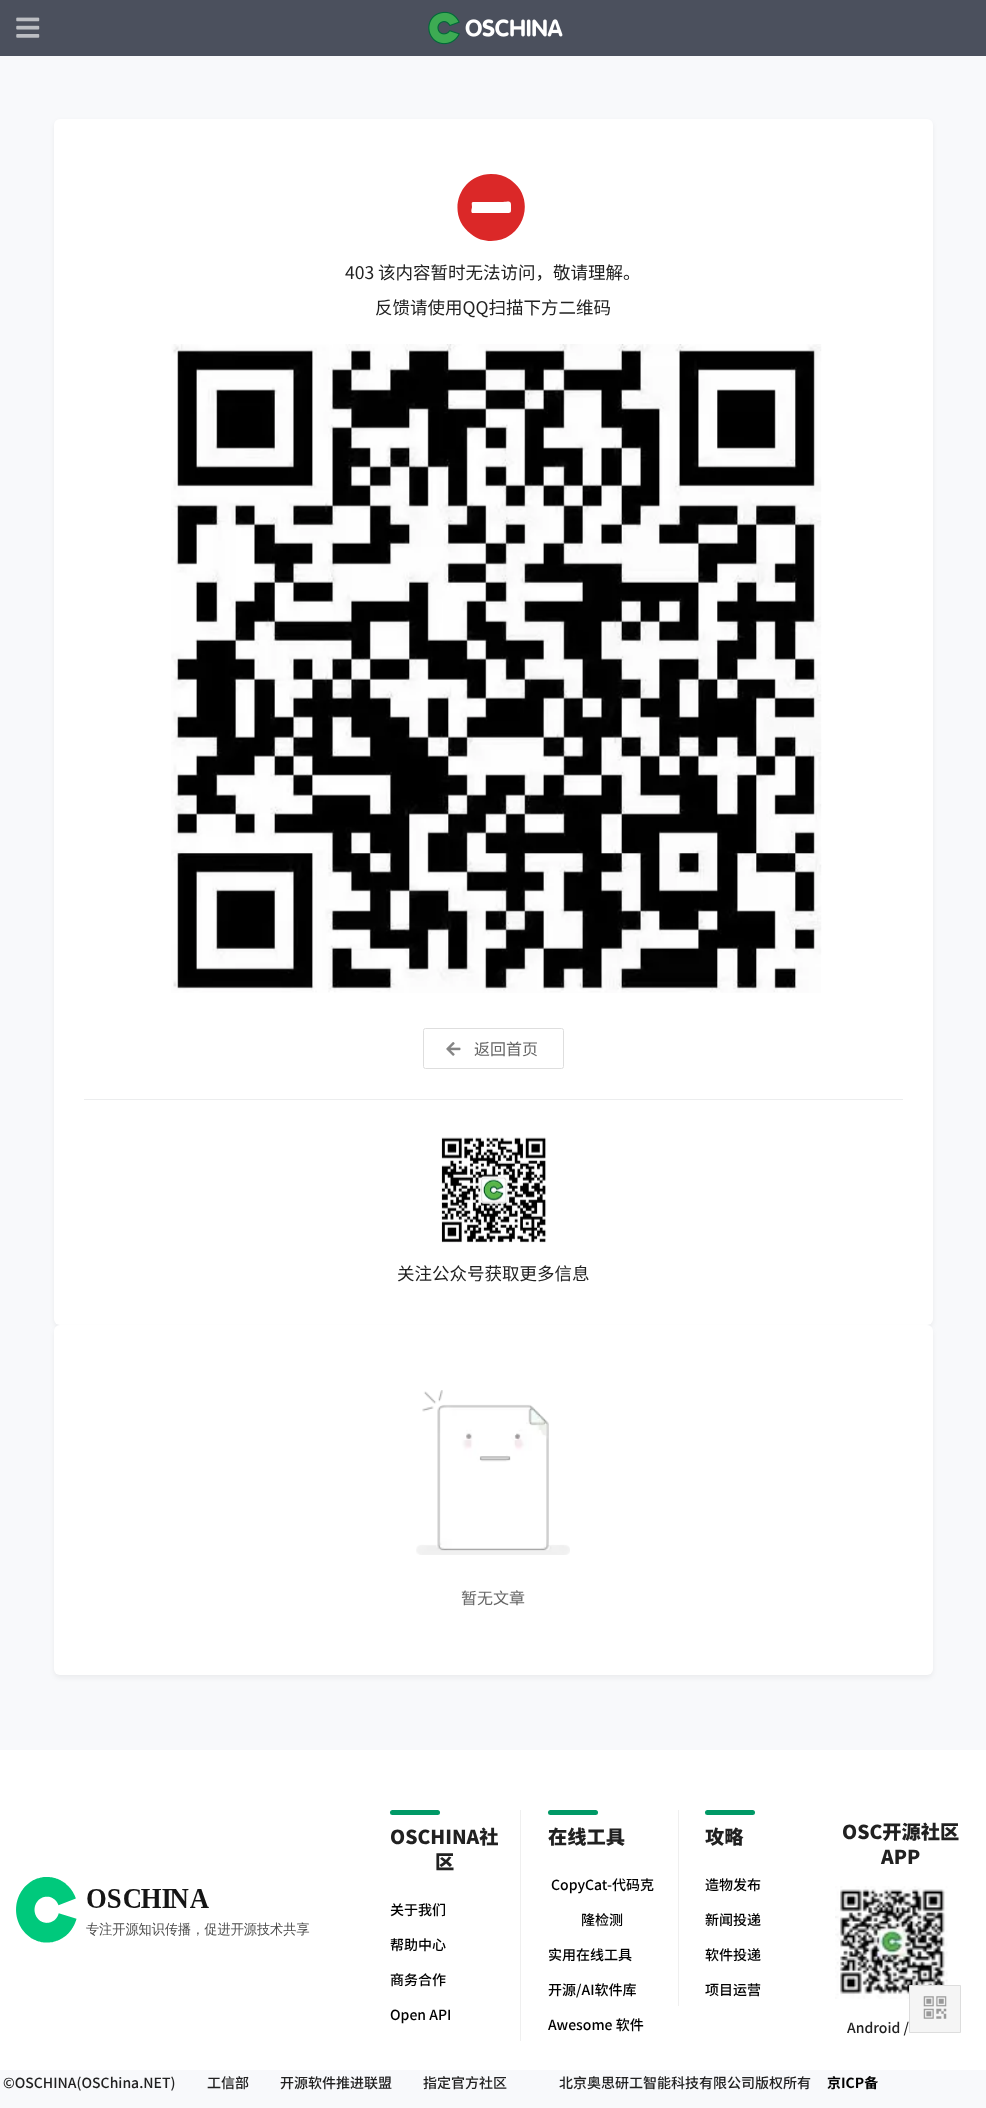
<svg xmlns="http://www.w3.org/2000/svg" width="986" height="2108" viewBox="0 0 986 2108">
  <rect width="100%" height="100%" fill="#fff"/>
  <path d="M0 0h986v56H0z" fill="#4b505d"/>
  <image x="16" y="17" width="24" height="21" href="img/1.png"/>
  <image x="428" y="11" width="135" height="34" href="img/2.png"/>
  <path d="M0 56h986v1694H0z" fill="#f8f9fb"/>
  <rect x="54" y="121" width="879" height="1207" rx="6" fill="#0000000d" filter="blur(2.5px)"/>
  <rect x="54" y="119" width="879" height="1206" rx="6" fill="#fff"/>
  <path d="M491 174C459 174 445 215 471 234C477 239 484 241 491 241C523 241 537 200 512 181C506 176 499 174 491 174ZM473 213C470 213 472 208 472 207C472 205 471 202 473 202H503C508 202 511 200 511 205C511 214 512 213 503 213Z" fill="#db2828"/>
  <image x="171" y="344" width="651" height="649" href="img/3.png"/>
  <rect x="423.5" y="1028.5" width="140" height="40" rx="2" fill="none" stroke="#dedede"/>
  <image x="446" y="1042" width="15" height="14" href="img/4.png"/>
  <path d="M84 1099h819v1H84z" fill="#ecedee"/>
  <image x="441" y="1137" width="106" height="106" href="img/5.png"/>
  <rect x="54" y="1328" width="879" height="350" rx="6" fill="#0000000d" filter="blur(2.5px)"/>
  <rect x="54" y="1325" width="879" height="350" rx="6" fill="#fff"/>
  <image x="416" y="1390" width="154" height="165" href="img/6.png"/>
  <image x="16" y="1877" width="294" height="66" href="img/7.png"/>
  <rect x="390" y="1810" width="50" height="5" rx="2.5" fill="#096"/>
  <path d="M520 1810h1v231H520z" fill="#efefef"/>
  <rect x="548" y="1810" width="50" height="5" rx="2.5" fill="#096"/>
  <path d="M678 1810h1v196H678z" fill="#efefef"/>
  <rect x="705" y="1810" width="50" height="5" rx="2.5" fill="#096"/>
  <image x="835" y="1886" width="113" height="113" href="img/8.png"/>
  <path d="M0 2070h986v38H0z" fill="#f8f9fb"/>
  <g font-family="Noto Sans CJK SC" font-size="17.5" fill="#212121">
    <text x="345" y="279">403 该内容暂时无法访问，敬请理解。</text>
    <text x="375" y="314">反馈请使用QQ扫描下方二维码</text>
  </g>
  <text x="474" y="1055" font-family="Noto Sans CJK SC" font-size="16" fill="#666">返回首页</text>
  <text x="397" y="1280" font-family="Noto Sans CJK SC" font-size="17.5" fill="#212121">关注公众号获取更多信息</text>
  <text x="461" y="1604" font-family="Noto Sans CJK SC" font-size="16" fill="#666">暂无文章</text>
  <g font-family="Noto Sans CJK SC" font-size="19.25" font-weight="900" fill="#212121">
    <text x="390" y="1844">OSCHINA社</text>
    <text x="435" y="1869">区</text>
  </g>
  <g font-family="Noto Sans CJK SC" font-size="14" font-weight="500" fill="#000">
    <text x="390" y="1915">关于我们</text>
    <text x="390" y="1950">帮助中心</text>
    <text x="390" y="1985">商务合作</text>
    <text x="390" y="2020">Open API</text>
  </g>
  <text x="548" y="1844" font-family="Noto Sans CJK SC" font-size="19.25" font-weight="900" fill="#212121">在线工具</text>
  <g font-family="Noto Sans CJK SC" font-size="14" font-weight="500" fill="#000">
    <text x="551" y="1890">CopyCat-代码克</text>
    <text x="581" y="1925">隆检测</text>
    <text x="548" y="1960">实用在线工具</text>
    <text x="548" y="1995">开源/AI软件库</text>
    <text x="548" y="2030">Awesome 软件</text>
  </g>
  <text x="705" y="1844" font-family="Noto Sans CJK SC" font-size="19.25" font-weight="900" fill="#212121">攻略</text>
  <g font-family="Noto Sans CJK SC" font-size="14" font-weight="500" fill="#000">
    <text x="705" y="1890">造物发布</text>
    <text x="705" y="1925">新闻投递</text>
    <text x="705" y="1960">软件投递</text>
    <text x="705" y="1995">项目运营</text>
  </g>
  <g font-family="Noto Sans CJK SC" font-size="19.25" font-weight="900" fill="#212121">
    <text x="842" y="1839">OSC开源社区</text>
    <text x="881" y="1864">APP</text>
  </g>
  <g font-family="Noto Sans CJK SC" font-size="14" font-weight="500" fill="#212121">
    <text x="847" y="2033">Android /</text>
    <text x="3" y="2088">©OSCHINA(OSChina.NET)</text>
    <text x="207" y="2088">工信部</text>
    <text x="280" y="2088">开源软件推进联盟</text>
    <text x="423" y="2088">指定官方社区</text>
    <text x="559" y="2088">北京奥思研工智能科技有限公司版权所有</text>
  </g>
  <text x="827" y="2088" font-family="Noto Sans CJK SC" font-size="14" font-weight="bold" fill="#000">京ICP备</text>
  <path d="M909.5 1985.5h51v47H909.5z" fill="#f5f5f5" stroke="#ddd"/>
  <image x="923" y="1996" width="24" height="23" href="img/9.png"/>
</svg>
